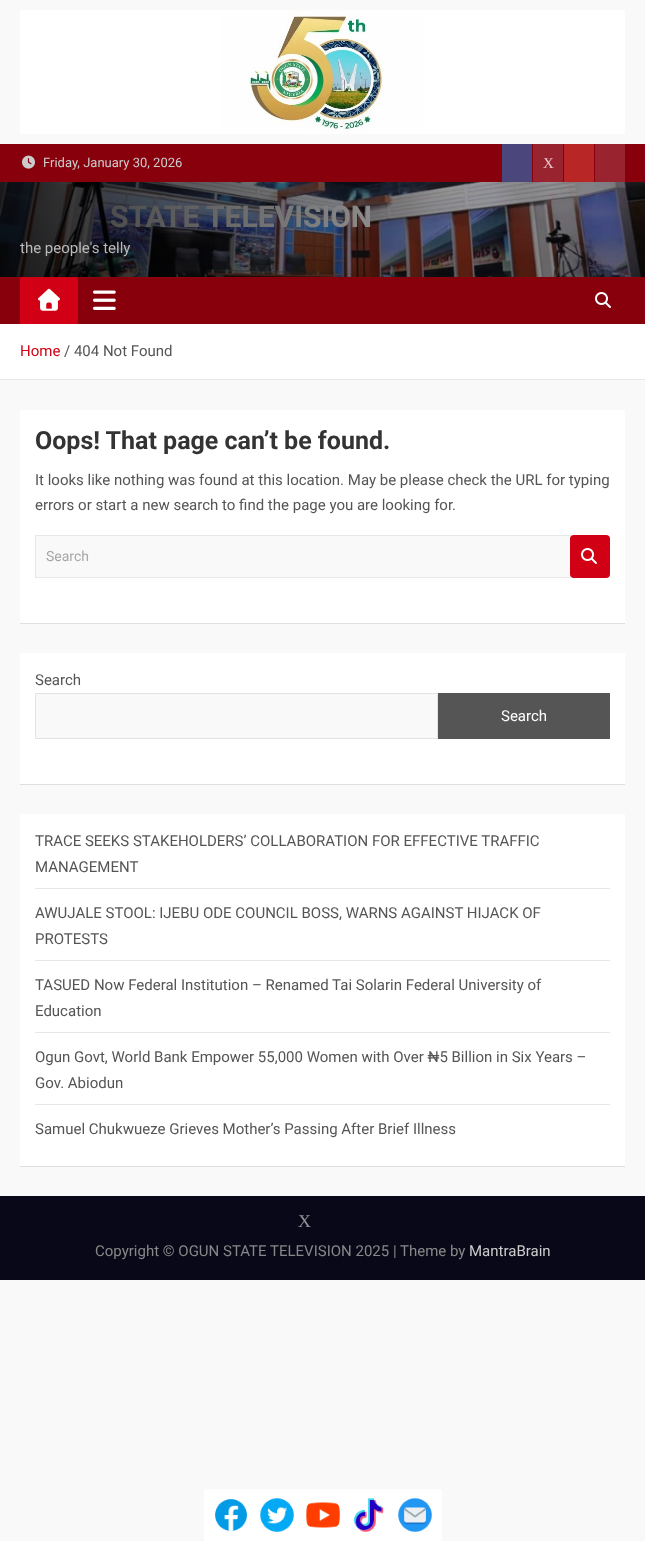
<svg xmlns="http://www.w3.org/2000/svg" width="645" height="1541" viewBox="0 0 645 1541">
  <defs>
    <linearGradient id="g1" gradientUnits="userSpaceOnUse" x1="0" y1="230" x2="645" y2="229"><stop offset="0" stop-color="#000" stop-opacity="0.8"/><stop offset="1" stop-color="#000" stop-opacity="0.2"/></linearGradient>
  </defs>
  <rect width="100%" height="100%" fill="#f9f9f9"/>
  <image x="20" y="10" width="605" height="124" href="img/1.png"/>
  <path d="M0 144h645v38H0z" fill="#89000d"/>
  <image x="22" y="155" width="13" height="14" href="img/2.png"/>
  <path d="M502 144h30v38H502z" fill="#4b477c"/>
  <path d="M533 144h30v38H533z" fill="#99232e"/>
  <path d="M564 144h30v38H564z" fill="#b82625"/>
  <path d="M595 144h30v38H595z" fill="#99232e"/>
  <image x="0" y="182" width="645" height="95" href="img/3.png"/>
  <path d="M0 277h645v47H0z" fill="#89000d"/>
  <path d="M20 277h58v47H20z" fill="#d10014"/>
  <image x="38" y="288" width="22" height="23" href="img/4.png"/>
  <image x="93" y="290" width="23" height="20" href="img/5.png"/>
  <image x="595" y="292" width="16" height="16" href="img/6.png"/>
  <path d="M0 324h645v55H0z" fill="#fff"/>
  <path d="M0 379h645v1H0z" fill="#e6e6e6"/>
  <path d="M20 411h605v213H20z" fill="#0000001a" filter="blur(0.5px)"/>
  <path d="M20 410h605v213H20z" fill="#fff"/>
  <path d="M36 536h535v41H36z" fill="#f9f9f9"/>
  <path d="M35 535H571V536H36Z" fill="#e8e8e8"/>
  <path d="M571 578H35L36 577H571Z" fill="#e8e8e8"/>
  <path d="M35 578V535L36 536V577Z" fill="#00000017"/>
  <rect x="570" y="535" width="40" height="43" rx="4" fill="#d10014"/>
  <image x="581" y="548" width="16" height="16" href="img/7.png"/>
  <path d="M20 654h605v131H20z" fill="#0000001a" filter="blur(0.5px)"/>
  <path d="M20 653h605v131H20z" fill="#fff"/>
  <path d="M35.5 693.5h402v45H35.5z" fill="#f9f9f9" stroke="#e3e3e3"/>
  <path d="M438 693h172v46H438z" fill="#555"/>
  <path d="M20 815h605v352H20z" fill="#0000001a" filter="blur(0.5px)"/>
  <path d="M20 814h605v352H20z" fill="#fff"/>
  <path d="M35 888h575v1H35z" fill="#e6e6e6"/>
  <path d="M35 960h575v1H35z" fill="#e6e6e6"/>
  <path d="M35 1032h575v1H35z" fill="#e6e6e6"/>
  <path d="M35 1104h575v1H35z" fill="#e6e6e6"/>
  <path d="M0 1196h645v84H0z" fill="#090818"/>
  <rect x="204" y="1489" width="238" height="52" rx="3" fill="#fff"/>
  <image x="215" y="1499" width="32" height="32" href="img/8.png"/>
  <image x="260" y="1498" width="34" height="34" href="img/9.png"/>
  <image x="306" y="1502" width="35" height="26" href="img/10.png"/>
  <image x="354" y="1498" width="30" height="34" href="img/11.png"/>
  <image x="398" y="1498" width="34" height="34" href="img/12.png"/>
  <text x="43" y="167" font-family="Roboto" font-size="13" fill="#ccc">Friday, January 30, 2026</text>
  <text x="543" y="168" font-family="Liberation Serif" font-size="15" fill="#e7cccf">X</text>
  <text x="110" y="227" font-family="Roboto" font-size="30" font-weight="bold" fill="#fff">STATE TELEVISION</text>
  <path d="M0 182h645v95H0z" fill="url(#g1)"/>
  <text x="20" y="253" font-family="Roboto" font-size="15" fill="#bababb">the people's telly</text>
  <text x="20" y="356" font-family="Roboto" font-size="15" fill="#d10014">Home</text>
  <text x="64" y="356" font-family="Roboto" font-size="15" fill="#555">/ 404 Not Found</text>
  <text x="35" y="449" font-family="Roboto" font-size="25" font-weight="bold" fill="#333">Oops! That page can’t be found.</text>
  <g font-family="Roboto" font-size="15" fill="#555">
    <text x="35" y="485">It looks like nothing was found at this location. May be please check the URL for typing</text>
    <text x="35" y="510">errors or start a new search to find the page you are looking for.</text>
  </g>
  <text x="46" y="561" font-family="Roboto" font-size="14" fill="#a7a7a7">Search</text>
  <text x="35" y="685" font-family="Roboto" font-size="15" fill="#555">Search</text>
  <text x="501" y="721" font-family="Roboto" font-size="15" fill="#fff">Search</text>
  <g font-family="Roboto" font-size="15" fill="#555">
    <text x="35" y="846">TRACE SEEKS STAKEHOLDERS’ COLLABORATION FOR EFFECTIVE TRAFFIC</text>
    <text x="35" y="872">MANAGEMENT</text>
    <text x="35" y="918">AWUJALE STOOL: IJEBU ODE COUNCIL BOSS, WARNS AGAINST HIJACK OF</text>
    <text x="35" y="944">PROTESTS</text>
    <text x="35" y="990">TASUED Now Federal Institution – Renamed Tai Solarin Federal University of</text>
    <text x="35" y="1016">Education</text>
    <text x="35" y="1062">Ogun Govt, World Bank Empower 55,000 Women with Over ₦5 Billion in Six Years –</text>
    <text x="35" y="1088">Gov. Abiodun</text>
    <text x="35" y="1134">Samuel Chukwueze Grieves Mother’s Passing After Brief Illness</text>
  </g>
  <text x="298" y="1227" font-family="Liberation Serif" font-size="18" fill="#929196">X</text>
  <text x="95" y="1256" font-family="Roboto" font-size="15" fill="#888">Copyright © OGUN STATE TELEVISION 2025 | Theme by</text>
  <text x="469" y="1256" font-family="Roboto" font-size="15" fill="#ccc">MantraBrain</text>
</svg>
